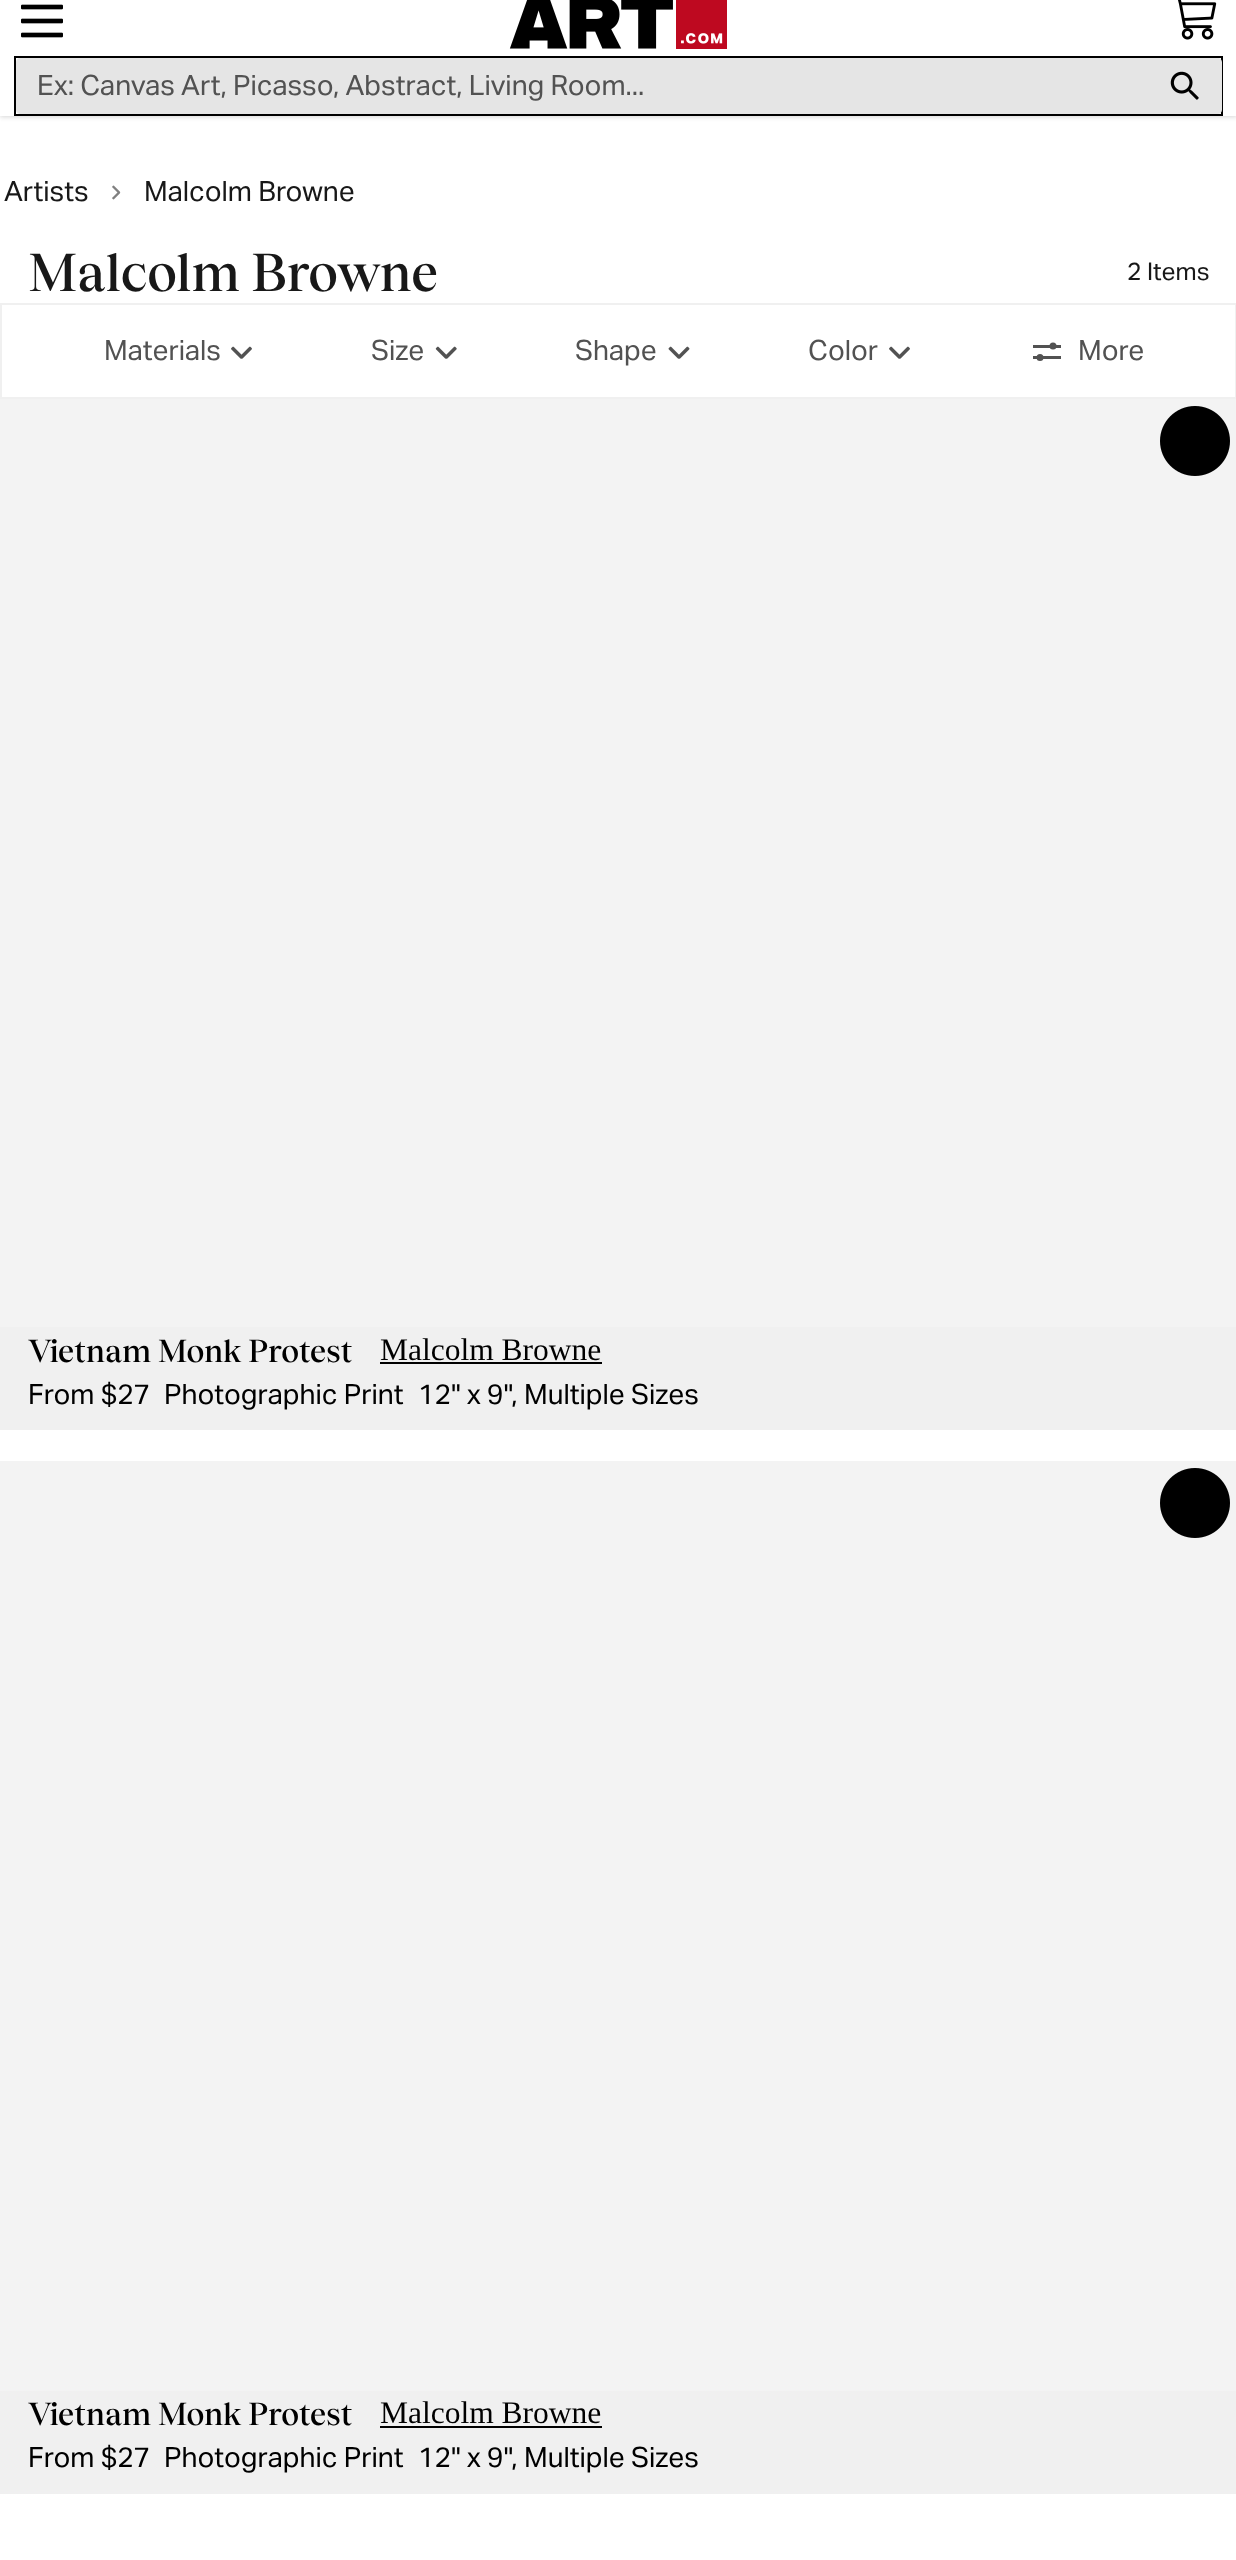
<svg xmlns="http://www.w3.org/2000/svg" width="1236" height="2560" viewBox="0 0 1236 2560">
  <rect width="100%" height="100%" fill="#fff"/>
  <path d="M0 -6h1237v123H0z" fill="#0000000f" filter="blur(2px)"/>
  <path d="M0 -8h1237v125H0z" fill="#0000001a" filter="blur(2.5px)"/>
  <path d="M0 0h1236v116H0z" fill="#fff"/>
  <image x="21" y="4" width="42" height="34" href="img/1.png"/>
  <image x="509" y="0" width="218" height="49" href="img/2.png"/>
  <image x="1178" y="0" width="39" height="40" href="img/3.png"/>
  <path d="M15 57h1207v58H15z" fill="none" stroke="#000" stroke-width="2"/>
  <path d="M20 58H1150V114H20C18 114 16 112 16 110V62C16 60 18 58 20 58Z" fill="#e5e5e5"/>
  <path d="M1150 58H1218C1220 58 1222 60 1222 62V110C1222 112 1220 114 1218 114H1150Z" fill="#e5e5e5"/>
  <image x="1170" y="71" width="29" height="29" href="img/4.png"/>
  <image x="112" y="185" width="9" height="15" href="img/5.png"/>
  <path d="M1 304h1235v94H1z" fill="none" stroke="#f0f0f0" stroke-width="2"/>
  <image x="231" y="346" width="21" height="13" href="img/6.png"/>
  <image x="435" y="346" width="22" height="13" href="img/7.png"/>
  <image x="668" y="346" width="22" height="13" href="img/8.png"/>
  <image x="889" y="346" width="21" height="13" href="img/6.png"/>
  <path d="M1033 356h28v3H1033z" fill="#525252"/>
  <path d="M1033 345h28v3H1033z" fill="#525252"/>
  <circle cx="1053" cy="346" r="3.5" fill="#525252"/>
  <circle cx="1040" cy="357.5" r="3.5" fill="#525252"/>
  <path d="M0 399h1236v928H0z" fill="#f3f3f3"/>
  <image x="1160" y="406" width="70" height="70" href="img/9.png"/>
  <path d="M0 1327h1236v103H0z" fill="#f0f0f0"/>
  <path d="M380 1362h222v2H380z" fill="#000"/>
  <path d="M0 1461h1236v930H0z" fill="#f3f3f3"/>
  <image x="1160" y="1468" width="70" height="70" href="img/9.png"/>
  <path d="M0 2391h1236v103H0z" fill="#f0f0f0"/>
  <path d="M380 2426h222v2H380z" fill="#000"/>
  <text x="37" y="95" font-family="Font" font-size="28" fill="#525252">Ex: Canvas Art, Picasso, Abstract, Living Room...</text>
  <g font-family="Font" font-size="28" fill="#181818">
    <text x="4" y="201">Artists</text>
    <text x="144" y="201">Malcolm Browne</text>
  </g>
  <text x="28" y="291" font-family="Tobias" font-size="52.5" font-weight="500" fill="#181818">Malcolm Browne</text>
  <text x="1127" y="280" font-family="Font" font-size="24.5" fill="#181818">2 Items</text>
  <g font-family="Font" font-size="28" fill="#525252">
    <text x="104" y="360">Materials</text>
    <text x="371" y="360">Size</text>
    <text x="575" y="360">Shape</text>
    <text x="808" y="360">Color</text>
    <text x="1078" y="360">More</text>
  </g>
  <text x="28" y="1362" font-family="Tobias" font-size="31.5" font-weight="500" fill="#000">Vietnam Monk Protest</text>
  <text x="380" y="1360" font-family="Liberation Serif" font-size="31.5" fill="#000">Malcolm Browne</text>
  <g font-family="Font" font-size="28" fill="#000">
    <text x="28" y="1404">From $27</text>
    <text x="164" y="1404">Photographic Print</text>
    <text x="418" y="1404">12" x 9",</text>
    <text x="524" y="1404">Multiple Sizes</text>
  </g>
  <text x="28" y="2425" font-family="Tobias" font-size="31.5" font-weight="500" fill="#000">Vietnam Monk Protest</text>
  <text x="380" y="2423" font-family="Liberation Serif" font-size="31.5" fill="#000">Malcolm Browne</text>
  <g font-family="Font" font-size="28" fill="#000">
    <text x="28" y="2467">From $27</text>
    <text x="164" y="2467">Photographic Print</text>
    <text x="418" y="2467">12" x 9",</text>
    <text x="524" y="2467">Multiple Sizes</text>
  </g>
</svg>
